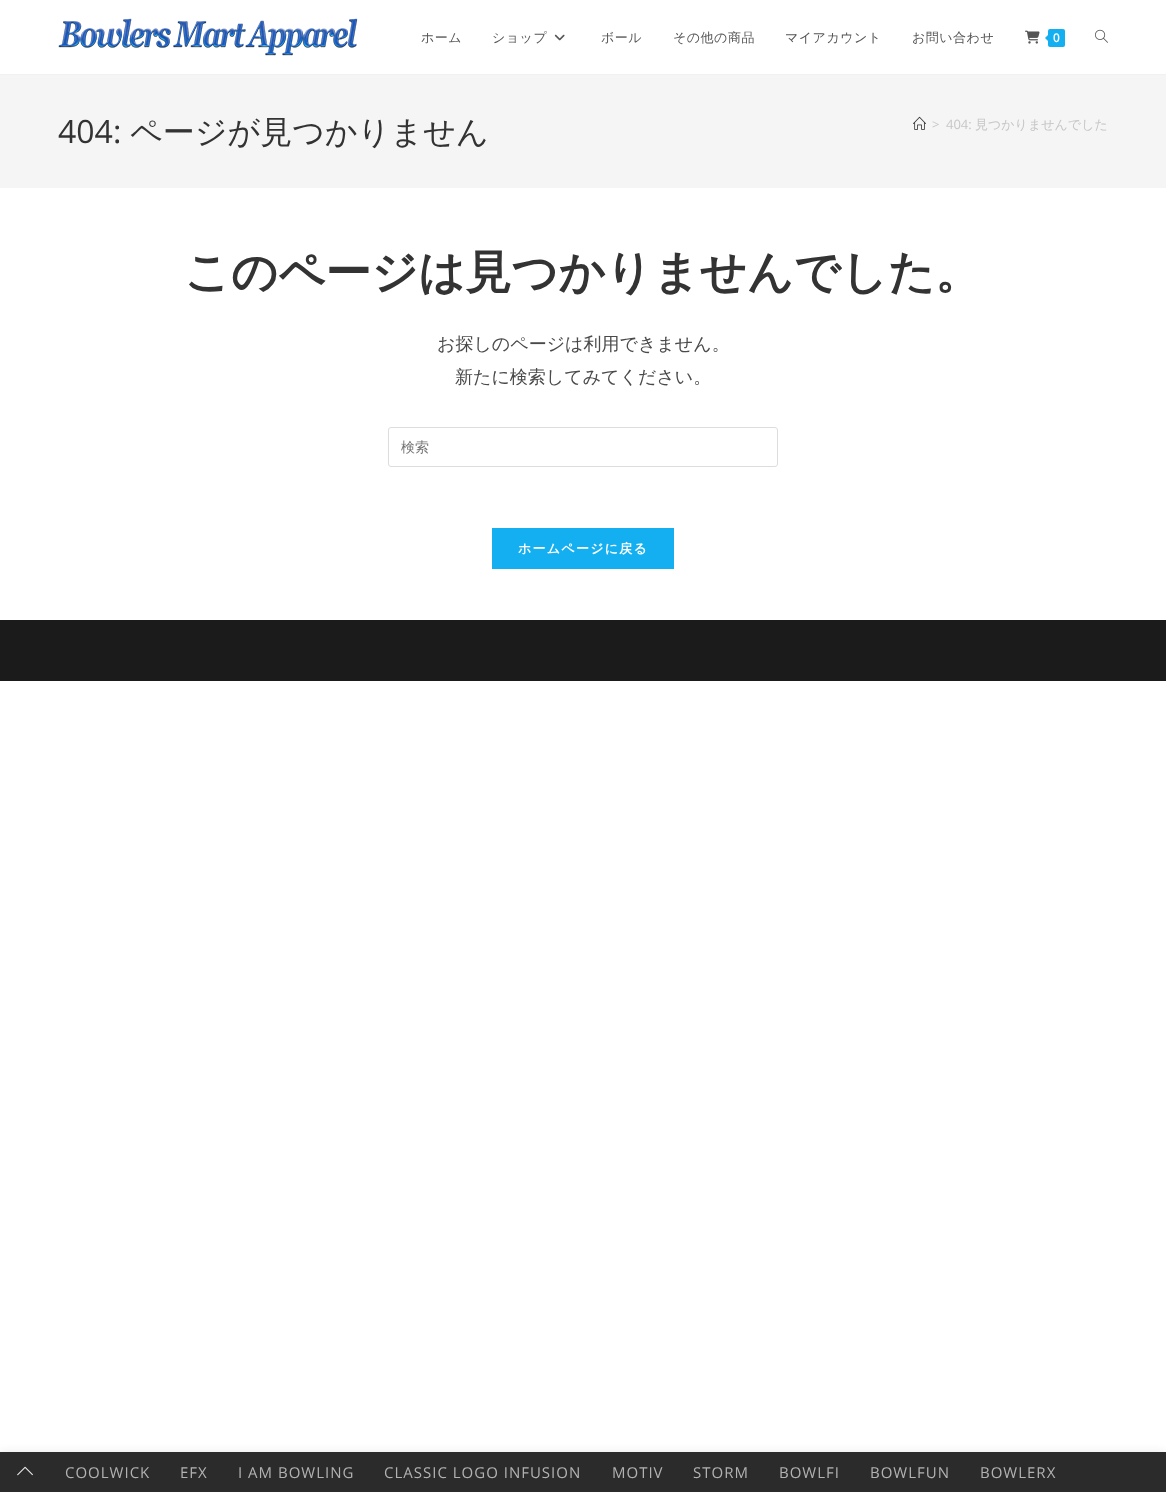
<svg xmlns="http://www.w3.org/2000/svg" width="1166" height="1492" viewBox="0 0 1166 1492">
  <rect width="100%" height="100%" fill="#fff"/>
  <path d="M0 74h1166v1H0z" fill="#f1f1f1"/>
  <image x="58" y="18" width="300" height="38" href="img/1.png"/>
  <image x="554" y="34" width="11" height="7" href="img/2.png"/>
  <image x="1025" y="30" width="15" height="14" href="img/3.png"/>
  <rect x="1048" y="29" width="17" height="18" rx="2" fill="#13aff0"/>
  <path d="M1050 33V43L1045 38Z" fill="#13aff0"/>
  <image x="1095" y="29" width="13" height="14" href="img/4.png"/>
  <path d="M0 75h1166v113H0z" fill="#f5f5f5"/>
  <image x="913" y="116" width="13" height="14" href="img/5.png"/>
  <rect x="388.5" y="427.5" width="389" height="39" rx="2.5" fill="none" stroke="#ddd"/>
  <path d="M492 528h182v41H492z" fill="#13aff0"/>
  <path d="M0 620h1166v61H0z" fill="#1b1b1b"/>
  <path d="M0 1452h1166v40H0z" fill="#1a1a1a1a" filter="blur(4px)"/>
  <path d="M0 1452h1166v40H0z" fill="#2b2b2b"/>
  <image x="17" y="1466" width="16" height="10" href="img/6.png"/>
  <g font-family="WenQuanYi Zen Hei" font-size="13" font-weight="500" letter-spacing="0.5" fill="#555">
    <text x="421" y="42">ホーム</text>
    <text x="492" y="42">ショップ</text>
    <text x="601" y="42">ボール</text>
    <text x="673" y="42">その他の商品</text>
    <text x="785" y="42">マイアカウント</text>
    <text x="912" y="42">お問い合わせ</text>
  </g>
  <text x="1053" y="42" font-family="Open Sans" font-size="12" font-weight="600" fill="#fff">0</text>
  <text x="58" y="143" font-family="Open Sans" font-size="32" fill="#333">404:</text>
  <text x="130" y="143" font-family="WenQuanYi Zen Hei" font-size="32" font-weight="500" fill="#333">ページが見つかりません</text>
  <g font-family="Open Sans" font-size="13" fill="#c6c6c6">
    <text x="932" y="129">&gt;</text>
    <text x="946" y="129">404:</text>
  </g>
  <text x="975" y="129" font-family="WenQuanYi Zen Hei" font-size="13" font-weight="500" fill="#c6c6c6">見つかりませんでした</text>
  <text x="184" y="288" font-family="WenQuanYi Zen Hei" font-size="46" font-weight="bold" fill="#333">このページは見つかりませんでした。</text>
  <g font-family="WenQuanYi Zen Hei" font-size="18" font-weight="500" fill="#4a4a4a">
    <text x="437" y="350">お探しのページは利用できません。</text>
    <text x="455" y="383">新たに検索してみてください。</text>
  </g>
  <text x="401" y="452" font-family="WenQuanYi Zen Hei" font-size="14" font-weight="500" fill="#757575">検索</text>
  <text x="518" y="553" font-family="WenQuanYi Zen Hei" font-size="13" font-weight="bold" letter-spacing="1.25" fill="#fff">ホームページに戻る</text>
  <g font-family="Open Sans" font-size="15" letter-spacing="1" fill="#b2b2b2">
    <text x="65" y="1478">COOLWICK</text>
    <text x="180" y="1478">EFX</text>
    <text x="238" y="1478">I AM BOWLING</text>
    <text x="384" y="1478">CLASSIC LOGO INFUSION</text>
    <text x="612" y="1478">MOTIV</text>
    <text x="693" y="1478">STORM</text>
    <text x="779" y="1478">BOWLFI</text>
    <text x="870" y="1478">BOWLFUN</text>
    <text x="980" y="1478">BOWLERX</text>
  </g>
</svg>
